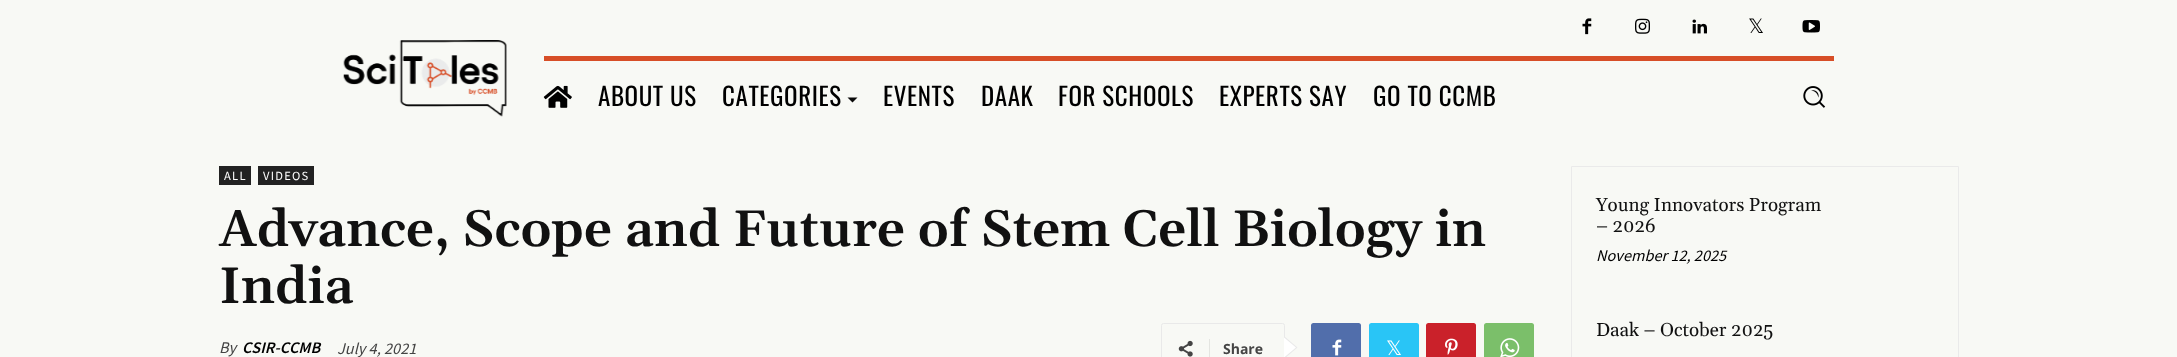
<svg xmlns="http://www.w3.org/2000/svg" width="2177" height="357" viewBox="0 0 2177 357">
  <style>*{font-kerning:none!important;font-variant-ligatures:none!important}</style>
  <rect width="100%" height="100%" fill="#f8f9f5"/>
  <image x="343" y="40" width="164" height="77" href="img/1.png"/>
  <image x="1582" y="18" width="10" height="17" href="img/2.png"/>
  <image x="1635" y="18" width="15" height="16" href="img/3.png"/>
  <image x="1692" y="19" width="15" height="15" href="img/4.png"/>
  <image x="1802" y="20" width="18" height="13" href="img/5.png"/>
  <path d="M544 56h1290v5H544z" fill="#d74e27"/>
  <image x="543" y="85" width="29" height="23" href="img/6.png"/>
  <path d="M847.5 97.5H857.5L852.5 102.5Z" fill="#0a0a0a"/>
  <image x="1803" y="86" width="23" height="22" href="img/7.png"/>
  <path d="M219 166h32v19H219z" fill="#222"/>
  <path d="M258 166h56v19H258z" fill="#222"/>
  <rect x="1161.5" y="323.5" width="123" height="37" rx="2" fill="none" stroke="#e9e9e9"/>
  <path d="M1284 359V336L1297.5 347.5Z" fill="#e9e9e9"/>
  <image x="1178" y="340" width="15" height="17" href="img/8.png"/>
  <path d="M1209 339h1v18H1209z" fill="#e4e5e1"/>
  <path d="M1284 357.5V337.5L1296 347.5Z" fill="#fff"/>
  <rect x="1311" y="323" width="50" height="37" rx="2.5" fill="#516eab"/>
  <image x="1332" y="339" width="10" height="17" href="img/9.png"/>
  <rect x="1369" y="323" width="50" height="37" rx="2.5" fill="#29c5f6"/>
  <rect x="1426" y="323" width="50" height="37" rx="2.5" fill="#ca212a"/>
  <image x="1445" y="338" width="13" height="17" href="img/10.png"/>
  <rect x="1484" y="323" width="50" height="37" rx="2.5" fill="#7bbf6a"/>
  <image x="1500" y="338" width="20" height="19" href="img/11.png"/>
  <path d="M1571.5 166.5h387v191H1571.5z" fill="none" stroke="#eaeaea"/>
  <text x="1748" y="33" font-family="DejaVu Sans" font-size="20" fill="#000">𝕏</text>
  <g font-family="Oswald" font-size="25" letter-spacing="0.6" fill="#000">
    <text x="598" y="106">ABOUT US</text>
    <text x="722" y="106">CATEGORIES</text>
    <text x="883" y="106">EVENTS</text>
    <text x="981" y="106">DAAK</text>
    <text x="1058" y="106">FOR SCHOOLS</text>
    <text x="1219" y="106">EXPERTS SAY</text>
    <text x="1373" y="106">GO TO CCMB</text>
  </g>
  <g font-family="Source Sans Pro" font-size="12.5" letter-spacing="1.25" fill="#fff">
    <text x="224" y="180">ALL</text>
    <text x="263" y="180">VIDEOS</text>
  </g>
  <g font-family="Gelasio" font-size="51.25" font-weight="600" fill="#111">
    <text x="219" y="246">Advance, Scope and Future of Stem Cell Biology in</text>
    <text x="219" y="303">India</text>
  </g>
  <text x="219" y="353" font-family="Source Sans Pro" font-size="16.25" font-style="italic" fill="#444">By</text>
  <text x="242" y="353" font-family="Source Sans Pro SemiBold" font-size="16.25" font-weight="600" font-style="italic" fill="#000">CSIR-CCMB</text>
  <text x="337" y="354" font-family="Source Sans Pro" font-size="16.25" font-style="italic" fill="#444">July 4, 2021</text>
  <text x="1223" y="354" font-family="Open Sans" font-size="14" font-weight="bold" fill="#444">Share</text>
  <text x="1386" y="355" font-family="DejaVu Sans" font-size="20" fill="#fff">𝕏</text>
  <g font-family="Gelasio" font-size="18.75" fill="#111">
    <text x="1596" y="211">Young Innovators Program</text>
    <text x="1596" y="232">– 2026</text>
  </g>
  <text x="1596" y="261" font-family="Source Sans Pro" font-size="16.25" font-style="italic" fill="#000">November 12, 2025</text>
  <text x="1596" y="336" font-family="Gelasio" font-size="18.75" fill="#111">Daak – October 2025</text>
</svg>
